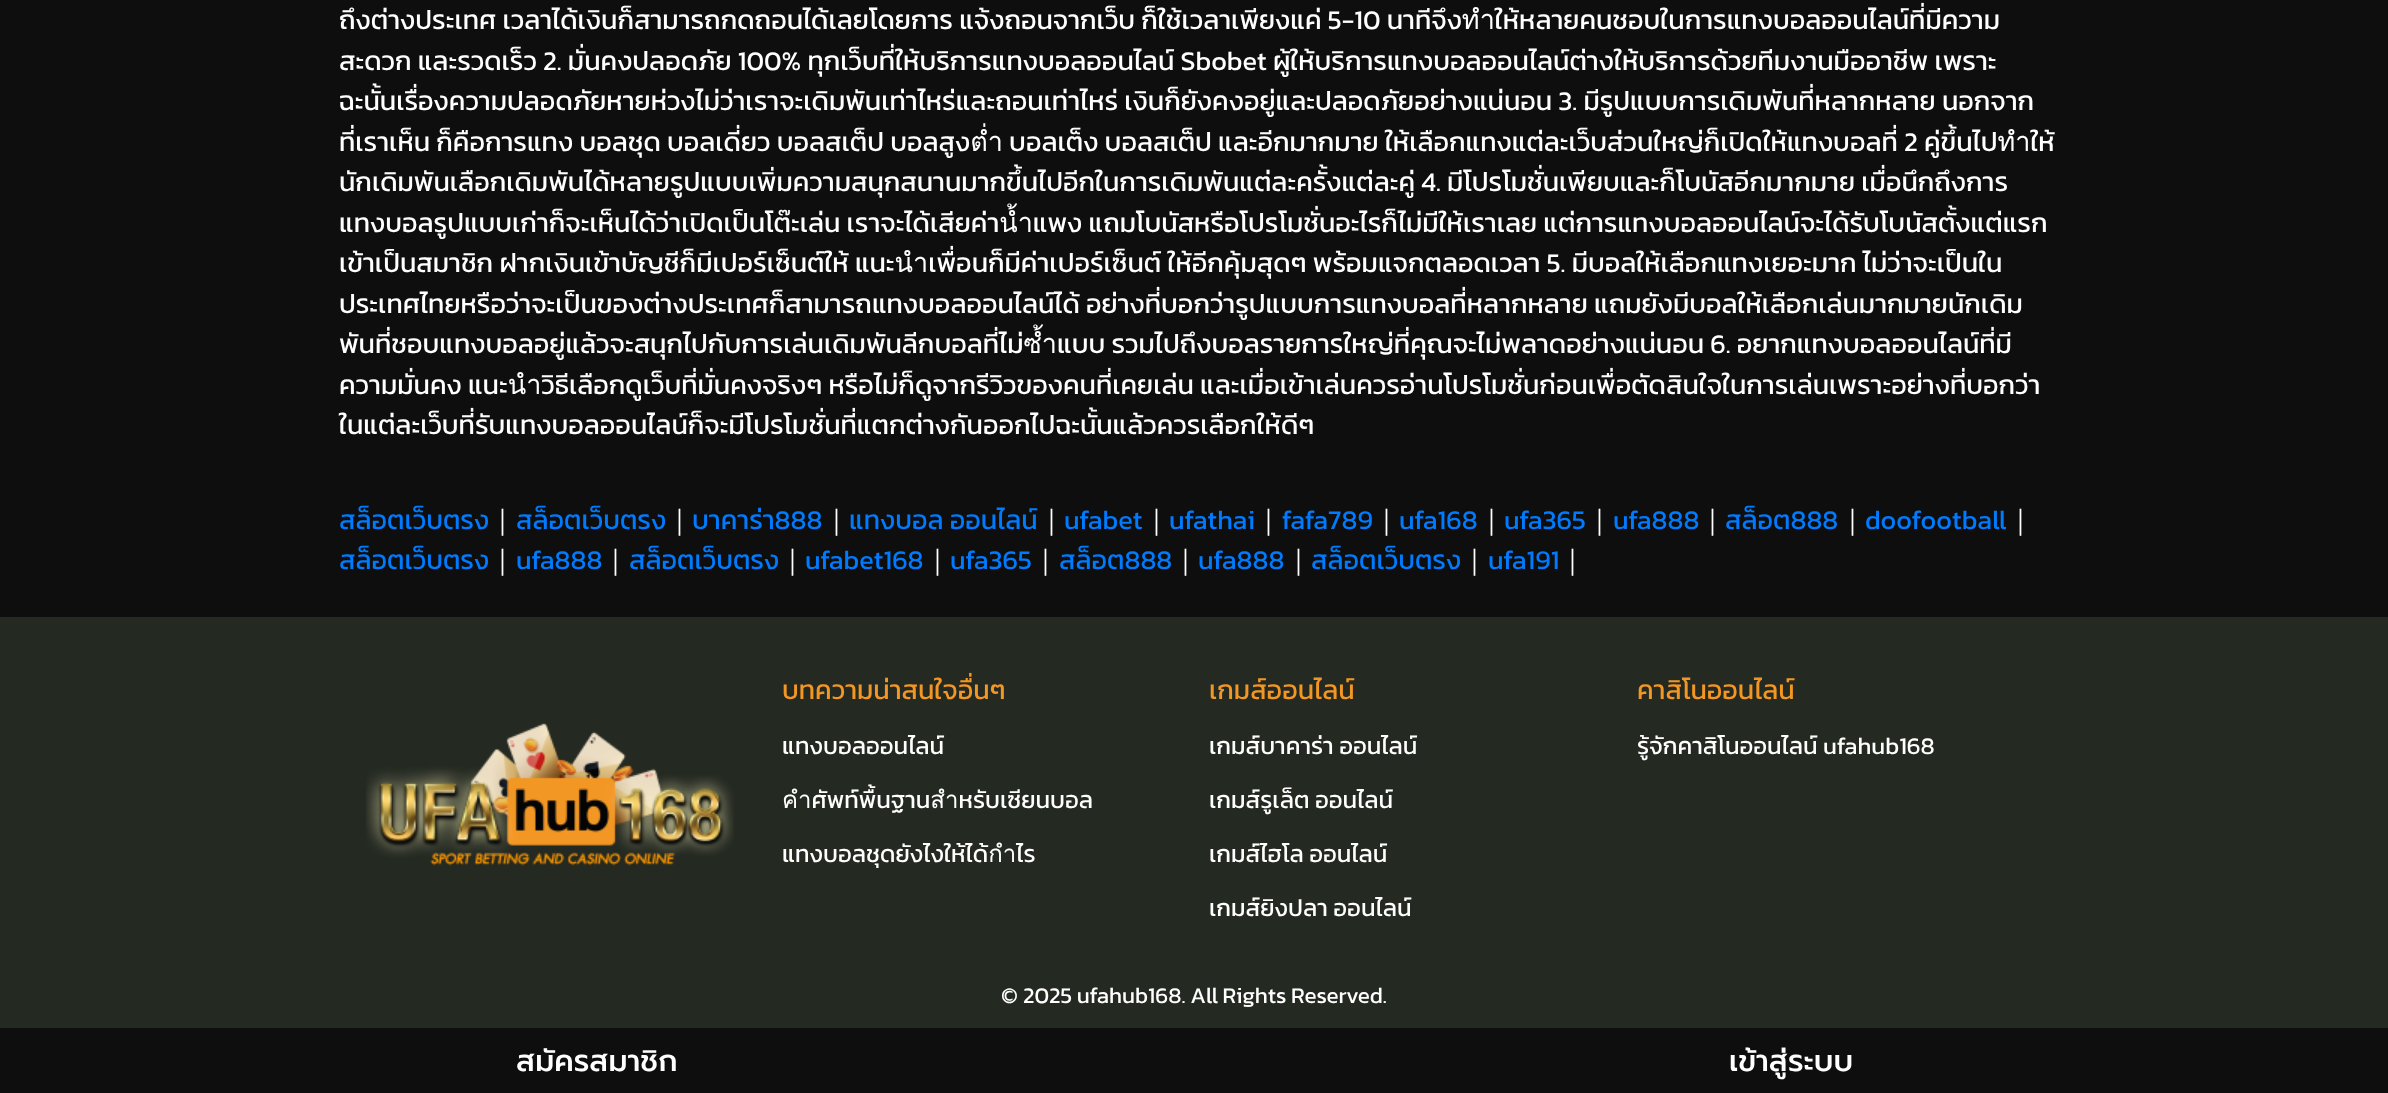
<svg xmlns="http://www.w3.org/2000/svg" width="2388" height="1093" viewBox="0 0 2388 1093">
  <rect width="100%" height="100%" fill="#0e0e0e"/>
  <path d="M0 617h2388v411H0z" fill="#242922"/>
  <image x="366" y="722" width="368" height="144" href="img/1.png"/>
  <g font-family="Kanit" font-size="27" fill="#fff">
    <text x="339" y="29">ถึงต่างประเทศ เวลาได้เงินก็สามารถกดถอนได้เลยโดยการ แจ้งถอนจากเว็บ ก็ใช้เวลาเพียงแค่ 5-10 นาทีจึงทำให้หลายคนชอบในการแทงบอลออนไลน์ที่มีความ</text>
    <text x="339" y="70">สะดวก และรวดเร็ว 2. มั่นคงปลอดภัย 100% ทุกเว็บที่ให้บริการแทงบอลออนไลน์ Sbobet ผู้ให้บริการแทงบอลออนไลน์ต่างให้บริการด้วยทีมงานมืออาชีพ เพราะ</text>
    <text x="339" y="110">ฉะนั้นเรื่องความปลอดภัยหายห่วงไม่ว่าเราจะเดิมพันเท่าไหร่และถอนเท่าไหร่ เงินก็ยังคงอยู่และปลอดภัยอย่างแน่นอน 3. มีรูปแบบการเดิมพันที่หลากหลาย นอกจาก</text>
    <text x="339" y="151">ที่เราเห็น ก็คือการแทง บอลชุด บอลเดี่ยว บอลสเต็ป บอลสูงต่ำ บอลเต็ง บอลสเต็ป และอีกมากมาย ให้เลือกแทงแต่ละเว็บส่วนใหญ่ก็เปิดให้แทงบอลที่ 2 คู่ขึ้นไปทำให้</text>
    <text x="339" y="191">นักเดิมพันเลือกเดิมพันได้หลายรูปแบบเพิ่มความสนุกสนานมากขึ้นไปอีกในการเดิมพันแต่ละครั้งแต่ละคู่ 4. มีโปรโมชั่นเพียบและก็โบนัสอีกมากมาย เมื่อนึกถึงการ</text>
    <text x="339" y="232">แทงบอลรูปแบบเก่าก็จะเห็นได้ว่าเปิดเป็นโต๊ะเล่น เราจะได้เสียค่าน้ำแพง แถมโบนัสหรือโปรโมชั่นอะไรก็ไม่มีให้เราเลย แต่การแทงบอลออนไลน์จะได้รับโบนัสตั้งแต่แรก</text>
    <text x="339" y="272">เข้าเป็นสมาชิก ฝากเงินเข้าบัญชีก็มีเปอร์เซ็นต์ให้ แนะนำเพื่อนก็มีค่าเปอร์เซ็นต์ ให้อีกคุ้มสุดๆ พร้อมแจกตลอดเวลา 5. มีบอลให้เลือกแทงเยอะมาก ไม่ว่าจะเป็นใน</text>
    <text x="339" y="313">ประเทศไทยหรือว่าจะเป็นของต่างประเทศก็สามารถแทงบอลออนไลน์ได้ อย่างที่บอกว่ารูปแบบการแทงบอลที่หลากหลาย แถมยังมีบอลให้เลือกเล่นมากมายนักเดิม</text>
    <text x="339" y="353">พันที่ชอบแทงบอลอยู่แล้วจะสนุกไปกับการเล่นเดิมพันลีกบอลที่ไม่ซ้ำแบบ รวมไปถึงบอลรายการใหญ่ที่คุณจะไม่พลาดอย่างแน่นอน 6. อยากแทงบอลออนไลน์ที่มี</text>
    <text x="339" y="394">ความมั่นคง แนะนำวิธีเลือกดูเว็บที่มั่นคงจริงๆ หรือไม่ก็ดูจากรีวิวของคนที่เคยเล่น และเมื่อเข้าเล่นควรอ่านโปรโมชั่นก่อนเพื่อตัดสินใจในการเล่นเพราะอย่างที่บอกว่า</text>
    <text x="339" y="434">ในแต่ละเว็บที่รับแทงบอลออนไลน์ก็จะมีโปรโมชั่นที่แตกต่างกันออกไปฉะนั้นแล้วควรเลือกให้ดีๆ</text>
  </g>
  <text x="339" y="529" font-family="Kanit" font-size="27" fill="#007bff">สล็อตเว็บตรง</text>
  <text x="489" y="529" font-family="WenQuanYi Zen Hei" font-size="27" font-weight="500" fill="#fff">｜</text>
  <text x="516" y="529" font-family="Kanit" font-size="27" fill="#007bff">สล็อตเว็บตรง</text>
  <text x="666" y="529" font-family="WenQuanYi Zen Hei" font-size="27" font-weight="500" fill="#fff">｜</text>
  <text x="692" y="529" font-family="Kanit" font-size="27" fill="#007bff">บาคาร่า888</text>
  <text x="823" y="529" font-family="WenQuanYi Zen Hei" font-size="27" font-weight="500" fill="#fff">｜</text>
  <text x="849" y="529" font-family="Kanit" font-size="27" fill="#007bff">แทงบอล ออนไลน์</text>
  <text x="1038" y="529" font-family="WenQuanYi Zen Hei" font-size="27" font-weight="500" fill="#fff">｜</text>
  <text x="1064" y="529" font-family="Kanit" font-size="27" fill="#007bff">ufabet</text>
  <text x="1143" y="529" font-family="WenQuanYi Zen Hei" font-size="27" font-weight="500" fill="#fff">｜</text>
  <text x="1169" y="529" font-family="Kanit" font-size="27" fill="#007bff">ufathai</text>
  <text x="1255" y="529" font-family="WenQuanYi Zen Hei" font-size="27" font-weight="500" fill="#fff">｜</text>
  <text x="1282" y="529" font-family="Kanit" font-size="27" fill="#007bff">fafa789</text>
  <text x="1373" y="529" font-family="WenQuanYi Zen Hei" font-size="27" font-weight="500" fill="#fff">｜</text>
  <text x="1399" y="529" font-family="Kanit" font-size="27" fill="#007bff">ufa168</text>
  <text x="1478" y="529" font-family="WenQuanYi Zen Hei" font-size="27" font-weight="500" fill="#fff">｜</text>
  <text x="1504" y="529" font-family="Kanit" font-size="27" fill="#007bff">ufa365</text>
  <text x="1586" y="529" font-family="WenQuanYi Zen Hei" font-size="27" font-weight="500" fill="#fff">｜</text>
  <text x="1613" y="529" font-family="Kanit" font-size="27" fill="#007bff">ufa888</text>
  <text x="1699" y="529" font-family="WenQuanYi Zen Hei" font-size="27" font-weight="500" fill="#fff">｜</text>
  <text x="1725" y="529" font-family="Kanit" font-size="27" fill="#007bff">สล็อต888</text>
  <text x="1839" y="529" font-family="WenQuanYi Zen Hei" font-size="27" font-weight="500" fill="#fff">｜</text>
  <text x="1865" y="529" font-family="Kanit" font-size="27" fill="#007bff">doofootball</text>
  <text x="2007" y="529" font-family="WenQuanYi Zen Hei" font-size="27" font-weight="500" fill="#fff">｜</text>
  <text x="339" y="569" font-family="Kanit" font-size="27" fill="#007bff">สล็อตเว็บตรง</text>
  <text x="489" y="569" font-family="WenQuanYi Zen Hei" font-size="27" font-weight="500" fill="#fff">｜</text>
  <text x="516" y="569" font-family="Kanit" font-size="27" fill="#007bff">ufa888</text>
  <text x="602" y="569" font-family="WenQuanYi Zen Hei" font-size="27" font-weight="500" fill="#fff">｜</text>
  <text x="629" y="569" font-family="Kanit" font-size="27" fill="#007bff">สล็อตเว็บตรง</text>
  <text x="779" y="569" font-family="WenQuanYi Zen Hei" font-size="27" font-weight="500" fill="#fff">｜</text>
  <text x="805" y="569" font-family="Kanit" font-size="27" fill="#007bff">ufabet168</text>
  <text x="924" y="569" font-family="WenQuanYi Zen Hei" font-size="27" font-weight="500" fill="#fff">｜</text>
  <text x="950" y="569" font-family="Kanit" font-size="27" fill="#007bff">ufa365</text>
  <text x="1032" y="569" font-family="WenQuanYi Zen Hei" font-size="27" font-weight="500" fill="#fff">｜</text>
  <text x="1059" y="569" font-family="Kanit" font-size="27" fill="#007bff">สล็อต888</text>
  <text x="1172" y="569" font-family="WenQuanYi Zen Hei" font-size="27" font-weight="500" fill="#fff">｜</text>
  <text x="1198" y="569" font-family="Kanit" font-size="27" fill="#007bff">ufa888</text>
  <text x="1285" y="569" font-family="WenQuanYi Zen Hei" font-size="27" font-weight="500" fill="#fff">｜</text>
  <text x="1311" y="569" font-family="Kanit" font-size="27" fill="#007bff">สล็อตเว็บตรง</text>
  <text x="1461" y="569" font-family="WenQuanYi Zen Hei" font-size="27" font-weight="500" fill="#fff">｜</text>
  <text x="1488" y="569" font-family="Kanit" font-size="27" fill="#007bff">ufa191</text>
  <text x="1559" y="569" font-family="WenQuanYi Zen Hei" font-size="27" font-weight="500" fill="#fff">｜</text>
  <text x="782" y="699" font-family="Kanit" font-size="27" fill="#f39724">บทความน่าสนใจอื่นๆ</text>
  <g font-family="Kanit" font-size="24" fill="#fff">
    <text x="782" y="754">แทงบอลออนไลน์</text>
    <text x="782" y="808">คำศัพท์พื้นฐานสำหรับเซียนบอล</text>
    <text x="782" y="862">แทงบอลชุดยังไงให้ได้กำไร</text>
  </g>
  <text x="1209" y="699" font-family="Kanit" font-size="27" fill="#f39724">เกมส์ออนไลน์</text>
  <g font-family="Kanit" font-size="24" fill="#fff">
    <text x="1209" y="754">เกมส์บาคาร่า ออนไลน์</text>
    <text x="1209" y="808">เกมส์รูเล็ต ออนไลน์</text>
    <text x="1209" y="862">เกมส์ไฮโล ออนไลน์</text>
    <text x="1209" y="916">เกมส์ยิงปลา ออนไลน์</text>
  </g>
  <text x="1637" y="699" font-family="Kanit" font-size="27" fill="#f39724">คาสิโนออนไลน์</text>
  <text x="1637" y="754" font-family="Kanit" font-size="24" fill="#fff">รู้จักคาสิโนออนไลน์ ufahub168</text>
  <g font-family="Kanit" font-size="22.5" fill="#fff">
    <text x="1001" y="1003">©</text>
    <text x="1023" y="1003" word-spacing="-0.5">2025 ufahub168. All Rights Reserved.</text>
  </g>
  <g font-family="Prompt" font-size="30" font-weight="500" fill="#fff">
    <text x="516" y="1071">สมัครสมาชิก</text>
    <text x="1729" y="1071">เข้าสู่ระบบ</text>
  </g>
</svg>
